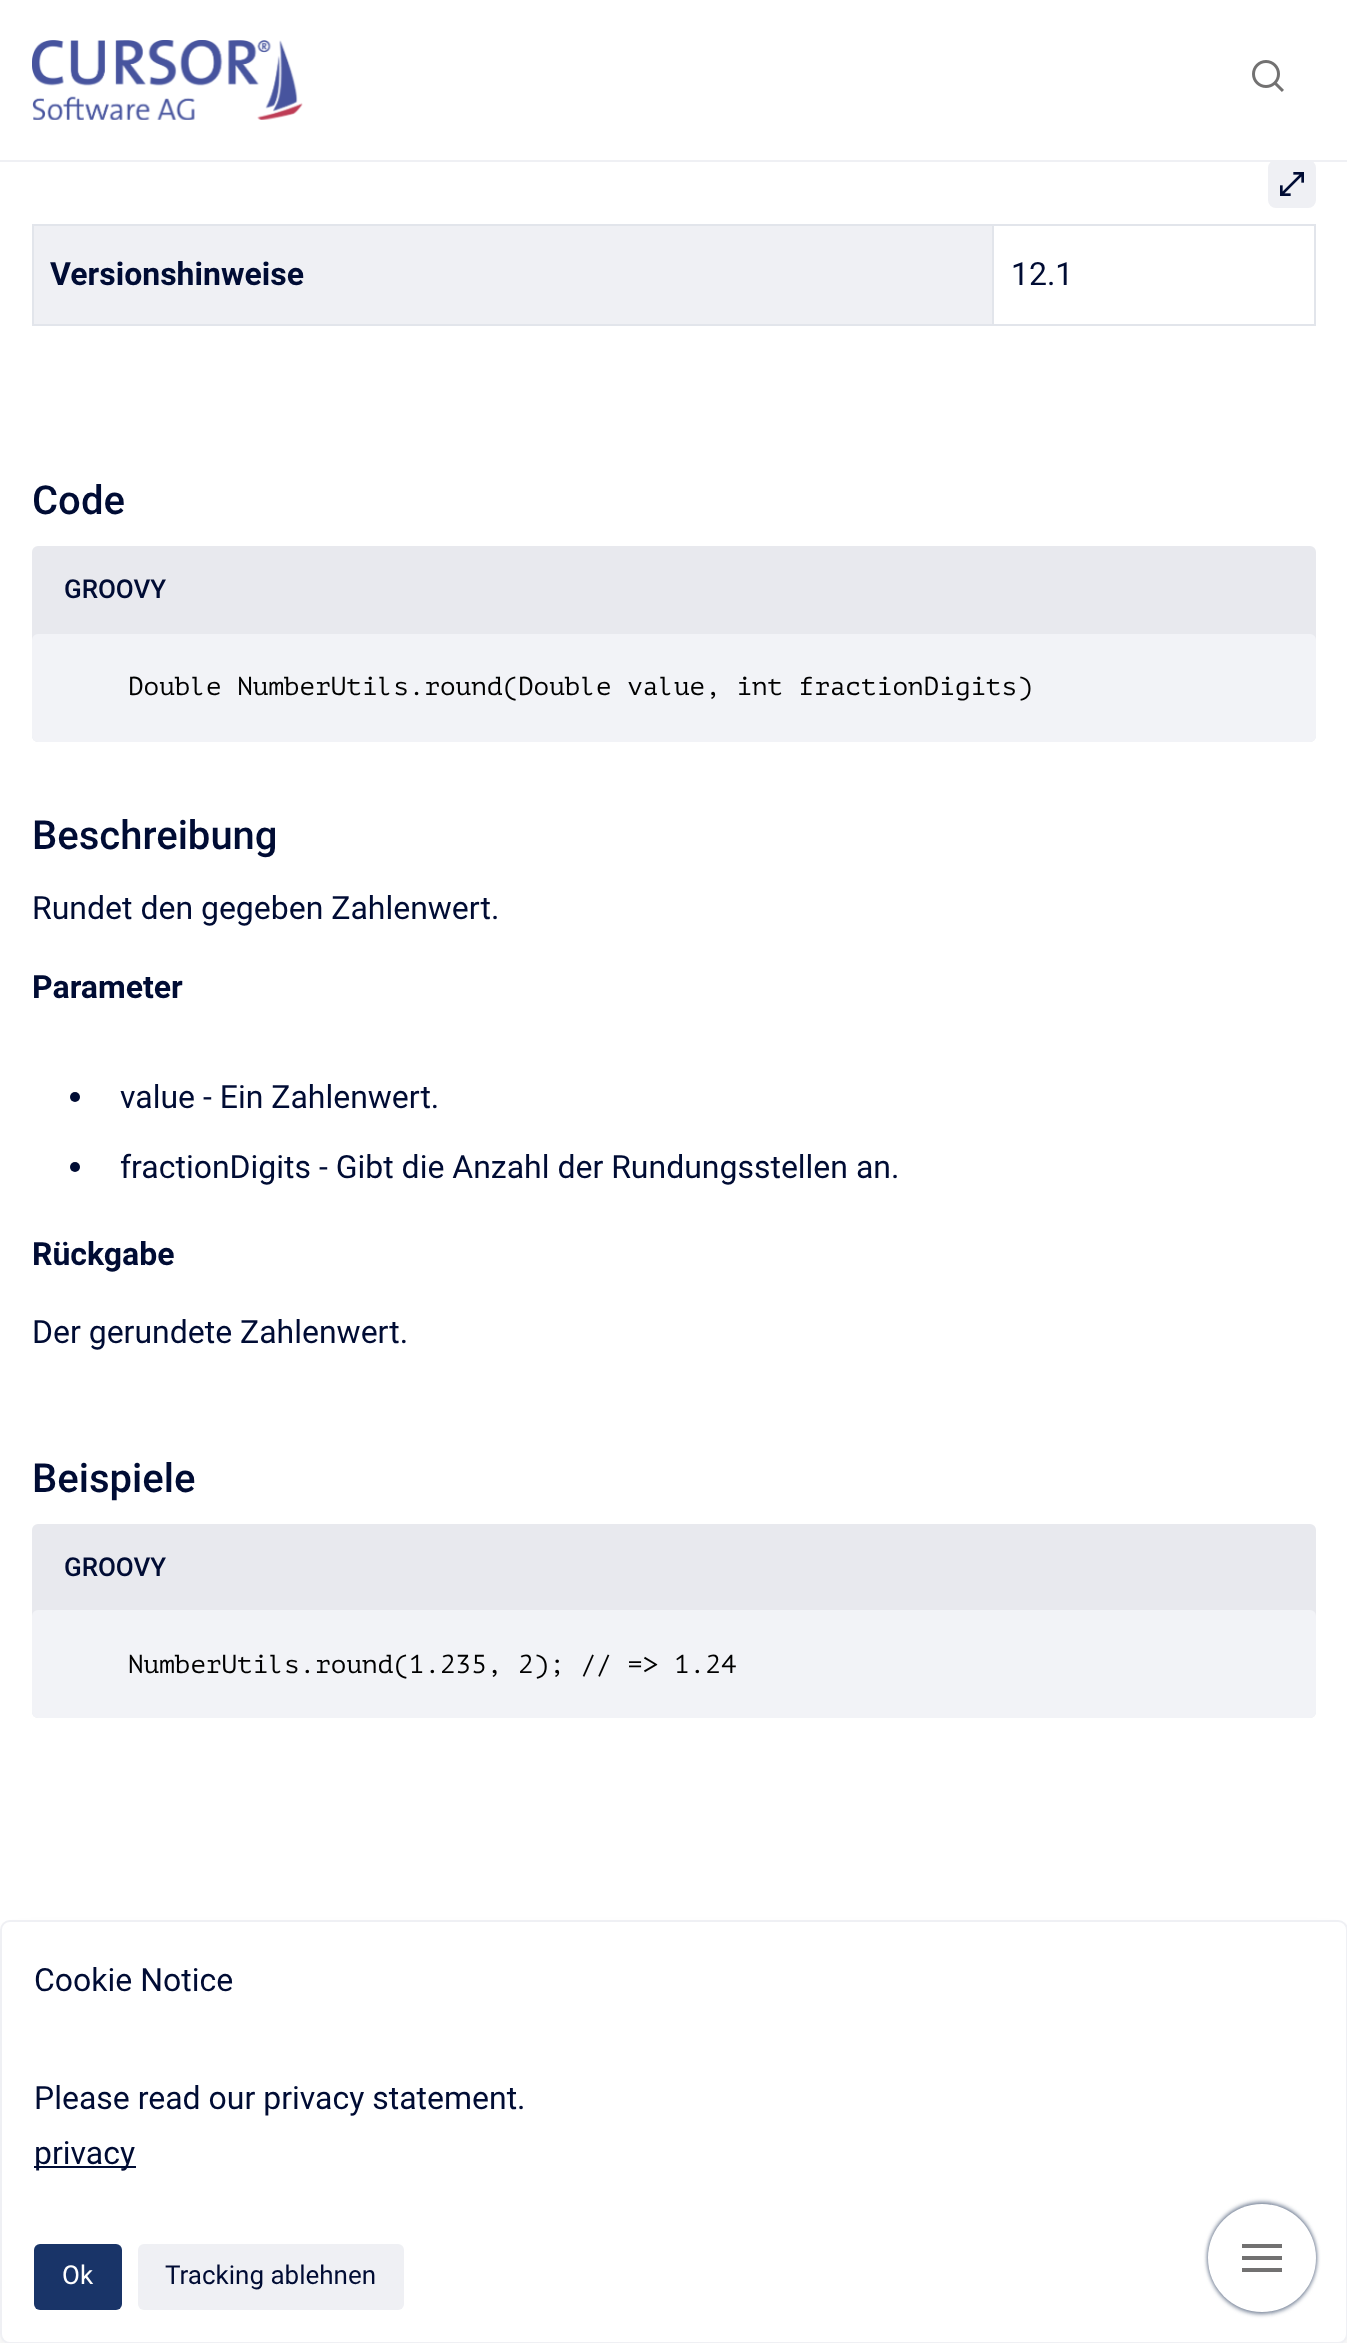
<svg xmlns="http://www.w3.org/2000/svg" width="1347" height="2343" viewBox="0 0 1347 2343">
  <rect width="100%" height="100%" fill="#fff"/>
  <rect x="1269" y="161" width="46" height="46" rx="7" fill="#eff0f4" stroke="#eff0f4" stroke-width="2"/>
  <path d="M0 160h1347v2H0z" fill="#eff0f4"/>
  <image x="32" y="40" width="271" height="80" href="img/1.png"/>
  <image x="1252" y="60" width="32" height="32" href="img/2.png"/>
  <image x="1280" y="172" width="24" height="24" href="img/3.png"/>
  <path d="M32 224h1284v2H32z" fill="#e2e5eb"/>
  <path d="M1314 224h2v102H1314z" fill="#e2e5eb"/>
  <path d="M32 324h1284v2H32z" fill="#e2e5eb"/>
  <path d="M32 224h2v102H32z" fill="#e2e5eb"/>
  <path d="M34 226h958v98H34z" fill="#eff0f4"/>
  <path d="M992 224h2v102H992z" fill="#e2e5eb"/>
  <rect x="32" y="546" width="1284" height="196" rx="6" fill="#e8e9ee"/>
  <rect x="32" y="634" width="1284" height="108" rx="6" fill="#f2f3f7"/>
  <circle cx="75" cy="1097" r="5" fill="#000c34"/>
  <circle cx="75" cy="1167" r="5" fill="#000c34"/>
  <rect x="32" y="1524" width="1284" height="194" rx="6" fill="#e8e9ee"/>
  <rect x="32" y="1610" width="1284" height="108" rx="6" fill="#f2f3f7"/>
  <rect x="6" y="1946" width="1336" height="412" rx="4" fill="#0000001a" filter="blur(15px)"/>
  <rect x="1" y="1921" width="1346" height="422" rx="9" fill="#fff" stroke="#eff0f4" stroke-width="2"/>
  <path d="M34 2166h102v2H34z" fill="#000c34"/>
  <rect x="34" y="2244" width="88" height="66" rx="6" fill="#193468"/>
  <rect x="138" y="2244" width="266" height="66" rx="6" fill="#eff0f4"/>
  <rect x="1208" y="2202" width="108" height="108" rx="54" fill="#7a869a" filter="blur(2px)"/>
  <rect x="1208" y="2206" width="108" height="108" rx="54" fill="#7a869a" filter="blur(2px)"/>
  <circle cx="1262" cy="2258" r="54" fill="#fff"/>
  <path d="M1242 2244h40v4H1242z" fill="#727171"/>
  <path d="M1242 2256h40v4H1242z" fill="#727171"/>
  <path d="M1242 2268h40v4H1242z" fill="#727171"/>
  <text x="50" y="285" font-family="Roboto" font-size="32" font-weight="bold" fill="#000c34">Versionshinweise</text>
  <text x="1011" y="285" font-family="Roboto" font-size="32" fill="#000c34">12.1</text>
  <text x="32" y="514" font-family="Roboto" font-size="40" font-weight="500" fill="#000c34">Code</text>
  <text x="64" y="598" font-family="Roboto" font-size="26" font-weight="500" fill="#000c34">GROOVY</text>
  <text x="128" y="695" font-family="PT Mono" font-size="26" fill="#000">Double NumberUtils.round(Double value, int fractionDigits)</text>
  <text x="32" y="849" font-family="Roboto" font-size="40" font-weight="500" fill="#000c34">Beschreibung</text>
  <text x="32" y="919" font-family="Roboto" font-size="32" fill="#000c34">Rundet den gegeben Zahlenwert.</text>
  <text x="32" y="998" font-family="Roboto" font-size="32" font-weight="bold" fill="#000c34">Parameter</text>
  <g font-family="Roboto" font-size="32" fill="#000c34">
    <text x="120" y="1108">value - Ein Zahlenwert.</text>
    <text x="120" y="1178">fractionDigits - Gibt die Anzahl der Rundungsstellen an.</text>
  </g>
  <text x="32" y="1265" font-family="Roboto" font-size="32" font-weight="bold" fill="#000c34">Rückgabe</text>
  <text x="32" y="1343" font-family="Roboto" font-size="32" fill="#000c34">Der gerundete Zahlenwert.</text>
  <text x="32" y="1492" font-family="Roboto" font-size="40" font-weight="500" fill="#000c34">Beispiele</text>
  <text x="64" y="1576" font-family="Roboto" font-size="26" font-weight="500" fill="#000c34">GROOVY</text>
  <text x="128" y="1673" font-family="PT Mono" font-size="26" fill="#000">NumberUtils.round(1.235, 2); // =&gt; 1.24</text>
  <g font-family="Roboto" font-size="32" fill="#000c34">
    <text x="34" y="1991">Cookie Notice</text>
    <text x="34" y="2109">Please read our privacy statement.</text>
    <text x="34" y="2164">privacy</text>
  </g>
  <text x="62" y="2284" font-family="Roboto" font-size="26" fill="#fff">Ok</text>
  <text x="165" y="2284" font-family="Roboto" font-size="26" fill="#000c34">Tracking ablehnen</text>
</svg>
